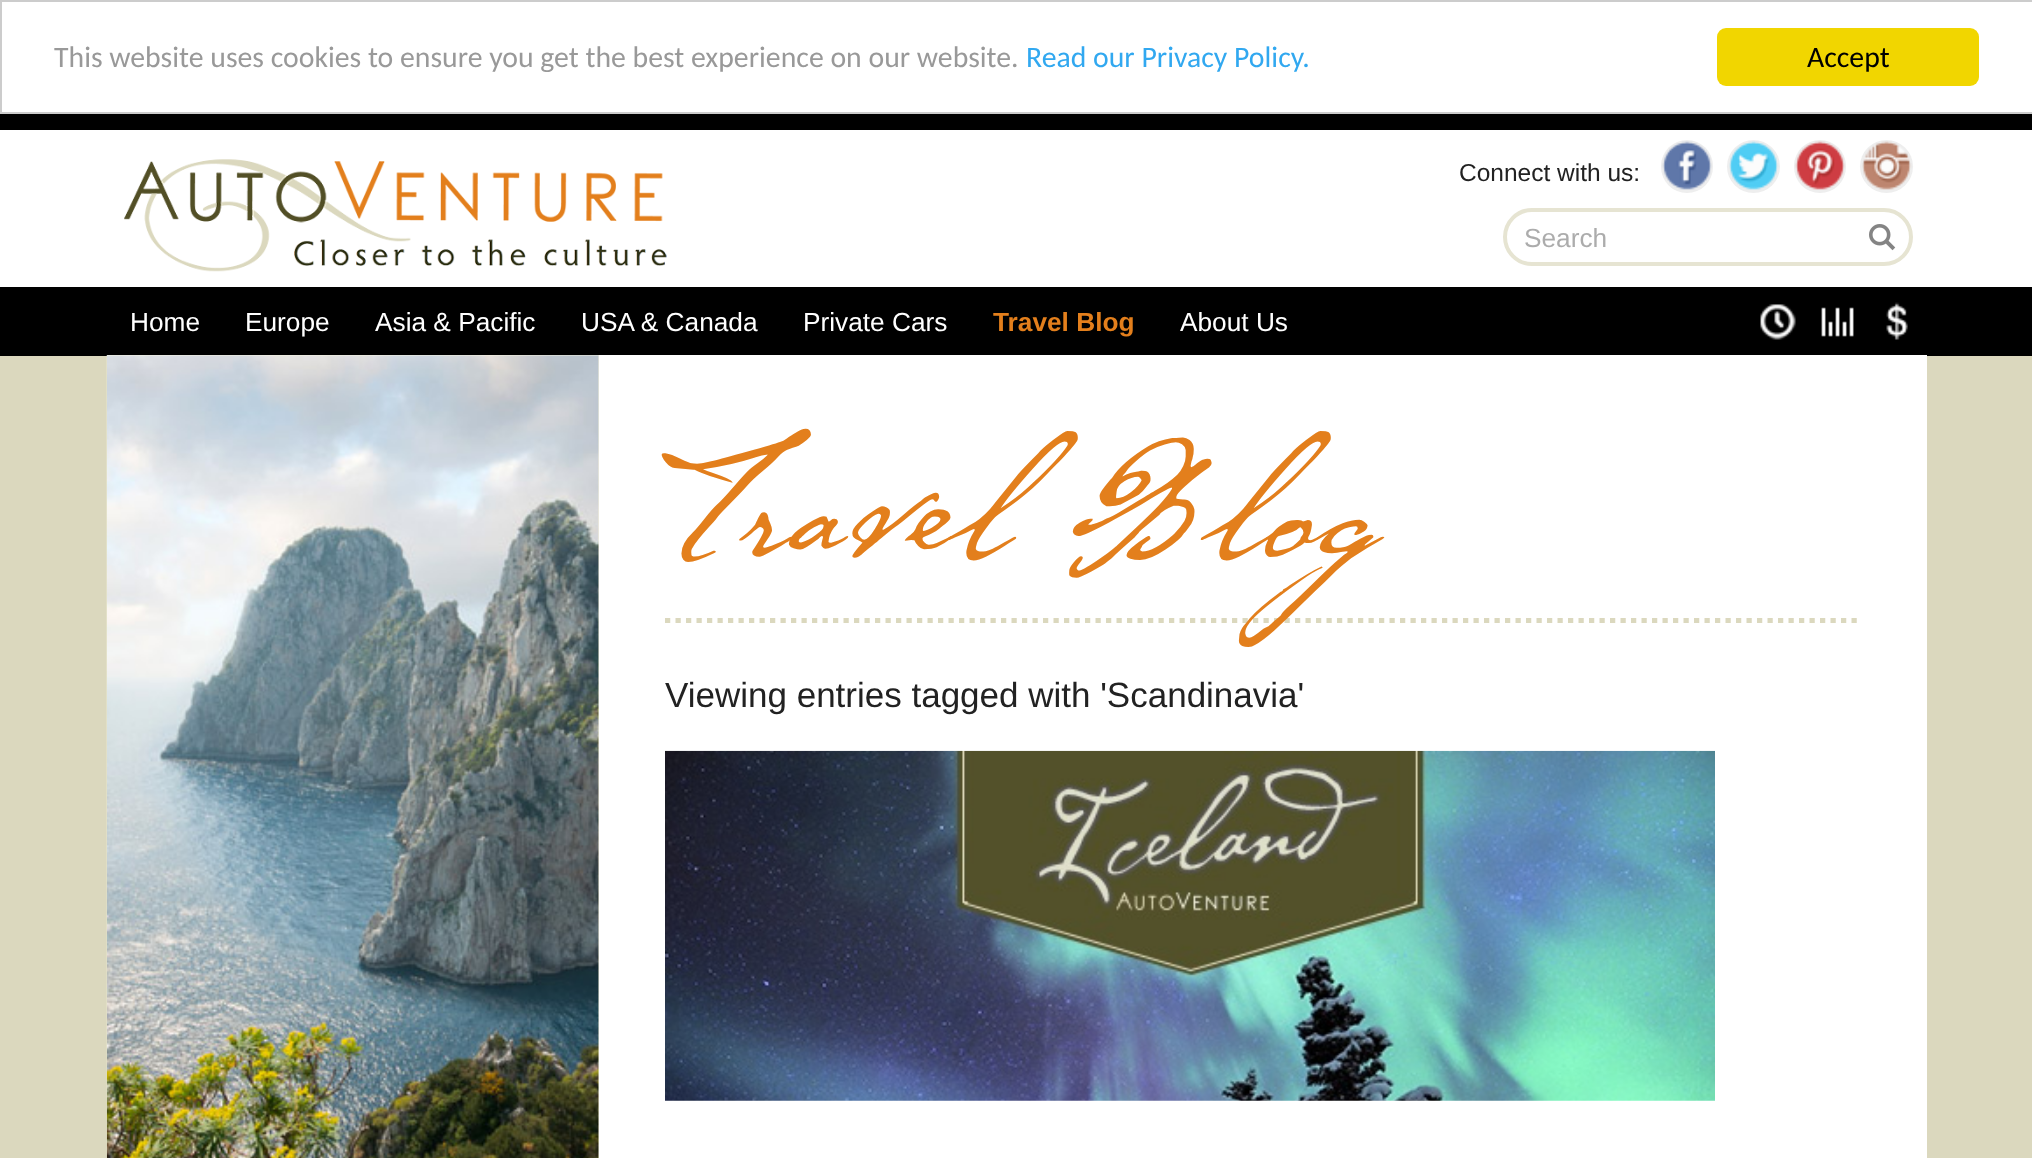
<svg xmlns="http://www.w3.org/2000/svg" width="2032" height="1158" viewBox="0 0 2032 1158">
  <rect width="100%" height="100%" fill="#000"/>
  <path d="M1 1h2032v112H1z" fill="#fff" stroke="#ccc" stroke-width="2"/>
  <rect x="1717" y="28" width="262" height="58" rx="9" fill="#f1d600"/>
  <path d="M0 356h2032v802H0z" fill="#dbd8be"/>
  <path d="M0 130h2032v157H0z" fill="#fff"/>
  <image x="124" y="159" width="543" height="113" href="img/1.png"/>
  <rect x="1661" y="140" width="52" height="53" rx="26" fill="#eee"/>
  <image x="1662" y="141" width="50" height="49" href="img/2.png"/>
  <circle cx="1753.5" cy="166.5" r="26.5" fill="#eee"/>
  <image x="1729" y="141" width="50" height="49" href="img/3.png"/>
  <rect x="1794" y="140" width="52" height="53" rx="26" fill="#eee"/>
  <image x="1795" y="141" width="50" height="49" href="img/4.png"/>
  <circle cx="1886.5" cy="166.5" r="26.5" fill="#eee"/>
  <image x="1862" y="141" width="50" height="49" href="img/5.png"/>
  <rect x="1505" y="210" width="406" height="54" rx="27" fill="none" stroke="#e6e4d2" stroke-width="4"/>
  <image x="1869" y="224" width="27" height="27" href="img/6.png"/>
  <image x="1760" y="304" width="36" height="36" href="img/7.png"/>
  <image x="1821" y="307" width="33" height="30" href="img/8.png"/>
  <image x="1886" y="302" width="22" height="38" href="img/9.png"/>
  <image x="106" y="355" width="1" height="803" href="img/10.png"/>
  <path d="M107 355h492v803H107z" fill="#f6f3df"/>
  <image x="106" y="355" width="493" height="803" href="img/11.png"/>
  <path d="M599 355h1328v803H599z" fill="#fff"/>
  <path d="M665 620.5H1860" fill="none" stroke="#dbd8be" stroke-width="5.2" stroke-dasharray="5.25 5.25"/>
  <image x="665" y="750" width="1050" height="351" href="img/12.png"/>
  <text x="54" y="67" font-family="Carlito" font-size="29.75" fill="#999">This website uses cookies to ensure you get the best experience on our website.</text>
  <text x="1026" y="67" font-family="Carlito" font-size="29.75" fill="#31a8f0">Read our Privacy Policy.</text>
  <text x="1807" y="67" font-family="Carlito" font-size="29.75" fill="#000">Accept</text>
  <text x="1459" y="181" font-family="Liberation Sans" font-size="24.5" fill="#222">Connect with us:</text>
  <text x="1524" y="247" font-family="Liberation Sans" font-size="26.25" fill="#acacac">Search</text>
  <g font-family="Liberation Sans" font-size="26.25" fill="#fff">
    <text x="130" y="331">Home</text>
    <text x="245" y="331">Europe</text>
    <text x="375" y="331">Asia &amp; Pacific</text>
    <text x="581" y="331">USA &amp; Canada</text>
    <text x="803" y="331">Private Cars</text>
  </g>
  <text x="993" y="331" font-family="Liberation Sans" font-size="26.25" font-weight="bold" fill="#e37f1c">Travel Blog</text>
  <text x="1180" y="331" font-family="Liberation Sans" font-size="26.25" fill="#fff">About Us</text>
  <text x="665" y="548" font-family="'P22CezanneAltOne'" font-size="175" fill="#e37f1c">Travel Blog</text>
  <text x="665" y="707" font-family="Liberation Sans" font-size="35" fill="#222">Viewing entries tagged with 'Scandinavia'</text>
</svg>
